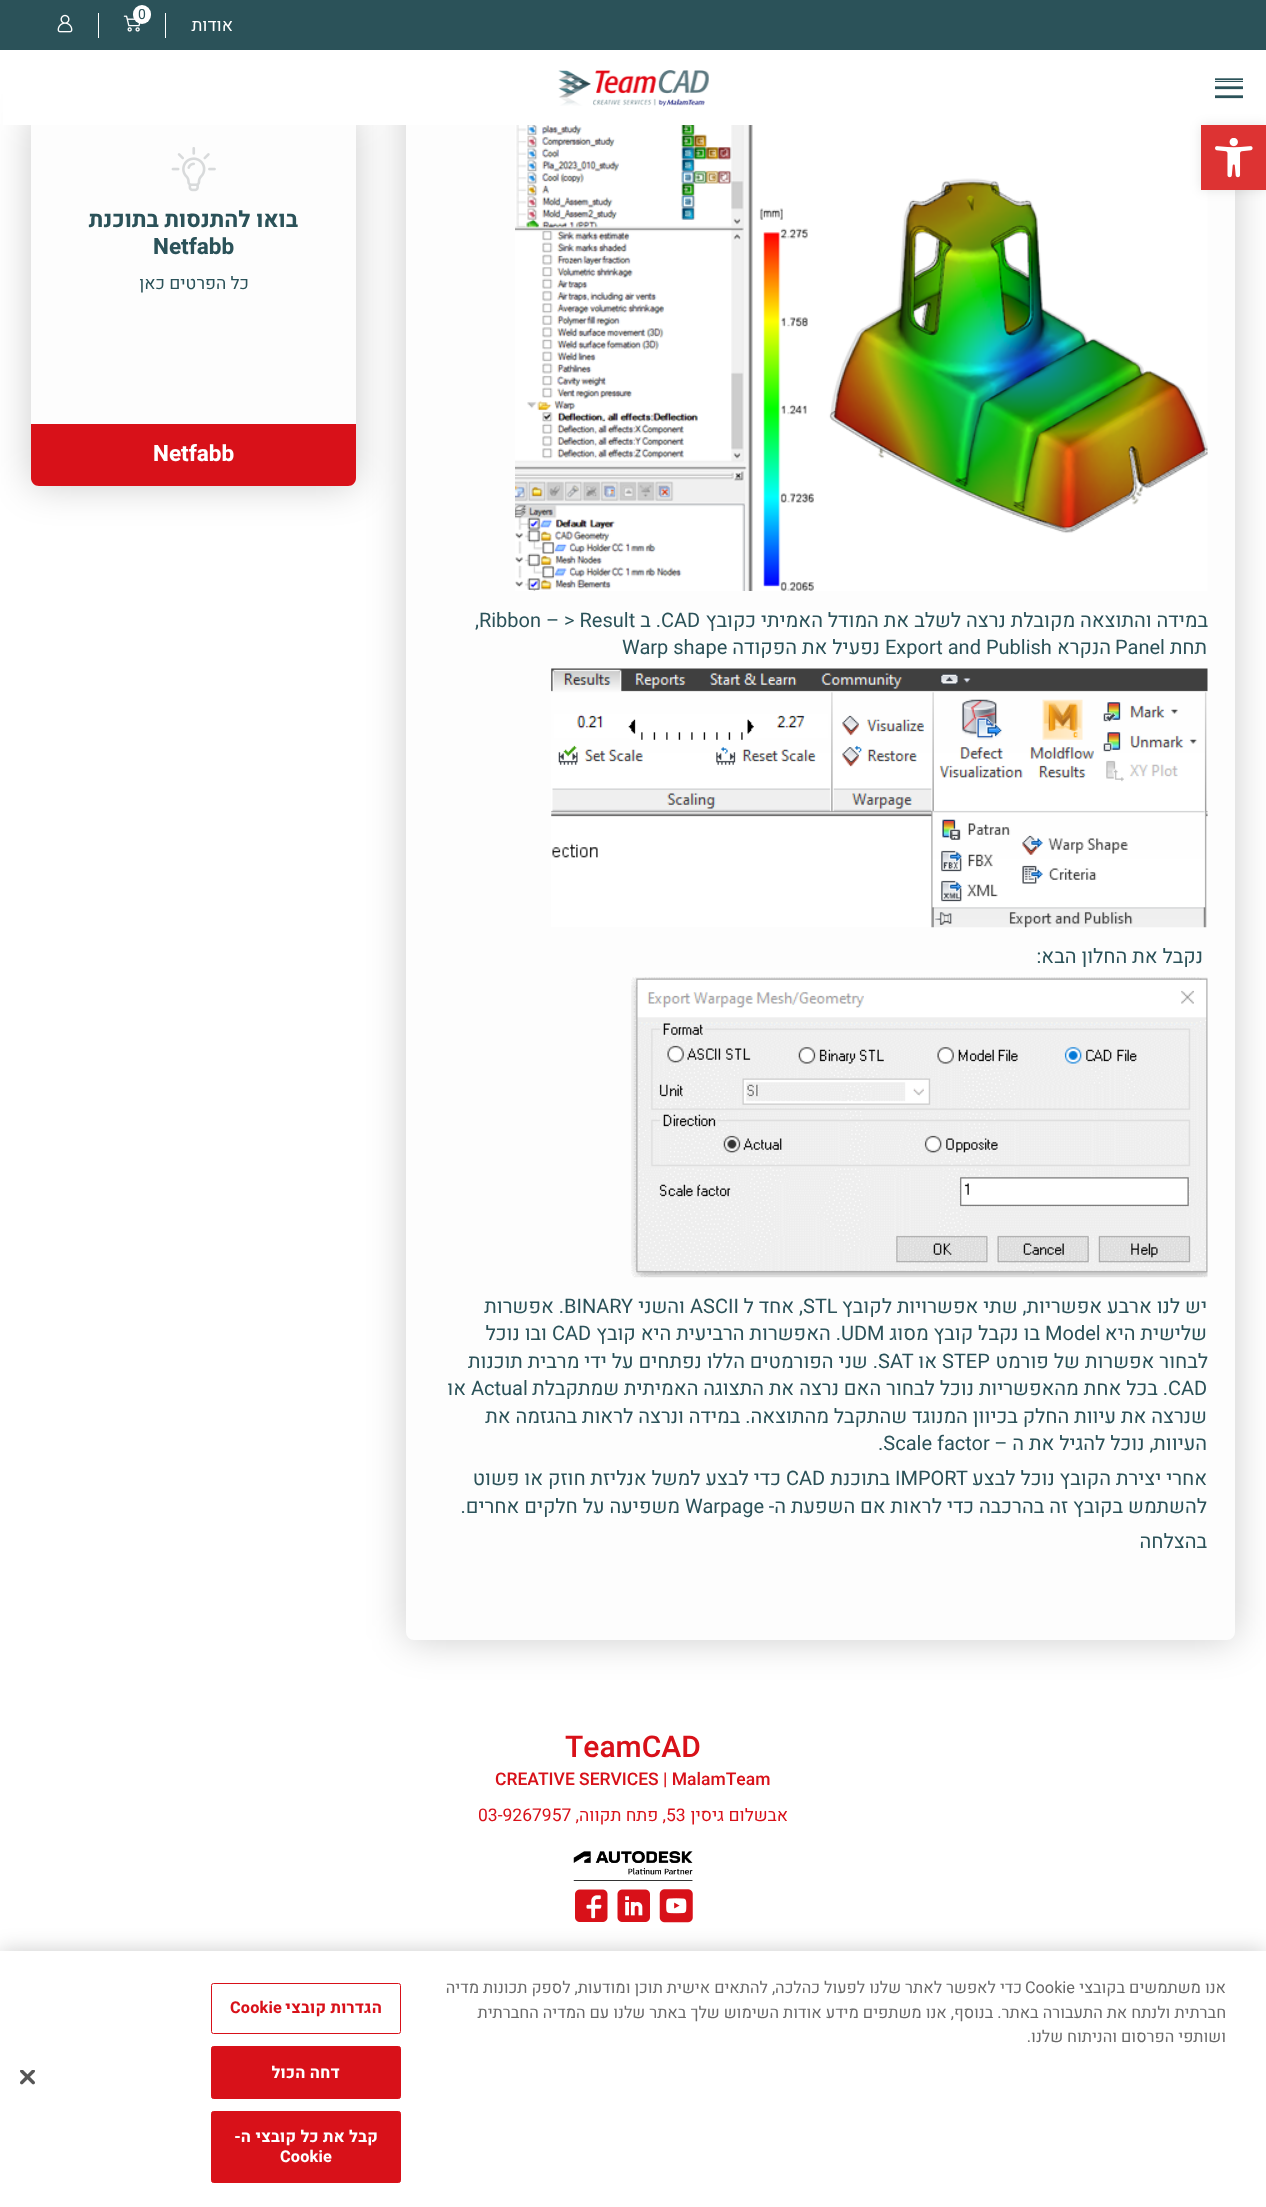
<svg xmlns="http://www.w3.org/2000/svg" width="1266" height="2207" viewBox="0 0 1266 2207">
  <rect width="100%" height="100%" fill="#fff"/>
  <rect x="406" y="-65" width="829" height="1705" rx="8" fill="#00000033" filter="blur(19px)"/>
  <rect x="406" y="-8" width="829" height="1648" rx="8" fill="#fdfdfd"/>
  <rect x="31" y="111" width="325" height="375" rx="8" fill="#00000033" filter="blur(19px)"/>
  <rect x="31" y="111" width="325" height="375" rx="8" fill="#fdfdfd"/>
  <path d="M3 50h1263v75H3z" fill="#fff"/>
  <path d="M0 0h1266v50H0z" fill="#2b5259"/>
  <path d="M165 13h1v25H165z" fill="#fff"/>
  <image x="123" y="15" width="18" height="17" href="img/1.png"/>
  <rect x="133" y="5" width="18" height="19" rx="9" fill="#fff"/>
  <path d="M98 13h1v25H98z" fill="#fff"/>
  <image x="57" y="14" width="16" height="19" href="img/2.png"/>
  <path d="M1215 79h28v3H1215z" fill="#2b5259"/>
  <path d="M1215 78h28v1H1215z" fill="#6d888c"/>
  <path d="M1215 80h28v1H1215z" fill="#e4e9ea"/>
  <path d="M1215 87h28v2H1215z" fill="#2b5259"/>
  <path d="M1215 86h28v1H1215z" fill="#6d888c"/>
  <path d="M1215 89h28v1H1215z" fill="#e4e9ea"/>
  <path d="M1215 96h28v2H1215z" fill="#2b5259"/>
  <path d="M1215 95h28v1H1215z" fill="#6d888c"/>
  <path d="M1215 98h28v1H1215z" fill="#e4e9ea"/>
  <image x="558" y="70" width="151" height="37" href="img/3.png"/>
  <image x="515" y="125" width="693" height="466" href="img/6.png"/>
  <path d="M1201 125h65v65H1201z" fill="#0000001a" filter="blur(6px)"/>
  <path d="M1201 125h65v65H1201z" fill="#d33"/>
  <image x="1215" y="138" width="38" height="40" href="img/4.png"/>
  <image x="171" y="147" width="45" height="45" href="img/5.png"/>
  <path d="M31 424H356V478C356 482.5 352.5 486 348 486H39C34.5 486 31 482.5 31 478Z" fill="#d81119"/>
  <image x="551" y="668" width="657" height="260" href="img/7.png"/>
  <image x="631" y="977" width="577" height="301" href="img/8.png"/>
  <image x="573" y="1851" width="120" height="30" href="img/9.png"/>
  <image x="659" y="1889" width="34" height="34" href="img/10.png"/>
  <image x="617" y="1889" width="33" height="33" href="img/11.png"/>
  <image x="575" y="1889" width="33" height="33" href="img/12.png"/>
  <path d="M0 1951h1266v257H0z" fill="#00000033" filter="blur(11px)"/>
  <path d="M0 1951h1266v256H0z" fill="#fff"/>
  <rect x="211.5" y="1983.5" width="189" height="50" rx="2" fill="none" stroke="#d81119"/>
  <rect x="211.5" y="2046.5" width="189" height="52" rx="2" fill="#d81119" stroke="#d81119"/>
  <rect x="211.5" y="2111.5" width="189" height="71" rx="2" fill="#d81119" stroke="#d81119"/>
  <image x="20" y="2070" width="15" height="15" href="img/13.png"/>
  <text x="233" y="31" font-family="Heebo" font-size="17.5" direction="rtl" fill="#fff">אודות</text>
  <text x="138" y="19" font-family="Heebo" font-size="14" fill="#2b5259">0</text>
  <text x="298" y="227" font-family="Heebo" font-size="22.5" font-weight="bold" direction="rtl" fill="#2b5259">בואו להתנסות בתוכנת</text>
  <text x="153" y="254" font-family="Heebo" font-size="22.5" font-weight="bold" fill="#2b5259">Netfabb</text>
  <text x="249" y="289" font-family="Heebo" font-size="17.5" direction="rtl" fill="#2b5259">כל הפרטים כאן</text>
  <text x="153" y="461" font-family="Heebo" font-size="22.5" font-weight="bold" fill="#fff">Netfabb</text>
  <text x="1208" y="627" font-family="Heebo" font-size="20" direction="rtl" fill="#2b5259">במידה והתוצאה מקובלת נרצה לשלב את המודל האמיתי כקובץ</text>
  <text x="661" y="627" font-family="Heebo" font-size="20" fill="#2b5259">CAD</text>
  <text x="661" y="627" font-family="Heebo" font-size="20" direction="rtl" fill="#2b5259">. ב</text>
  <text x="475" y="627" font-family="Heebo" font-size="20" fill="#2b5259">,Ribbon – &gt; Result</text>
  <text x="1207" y="654" font-family="Heebo" font-size="20" direction="rtl" fill="#2b5259">תחת</text>
  <text x="1115" y="654" font-family="Heebo" font-size="20" fill="#2b5259">Panel</text>
  <text x="1111" y="654" font-family="Heebo" font-size="20" direction="rtl" fill="#2b5259">הנקרא</text>
  <text x="885" y="654" font-family="Heebo" font-size="20" fill="#2b5259">Export and Publish</text>
  <text x="880" y="654" font-family="Heebo" font-size="20" direction="rtl" fill="#2b5259">נפעיל את הפקודה</text>
  <text x="622" y="654" font-family="Heebo" font-size="20" fill="#2b5259">Warp shape</text>
  <g font-family="Heebo" font-size="20" direction="rtl" fill="#2b5259">
    <text x="1203" y="963">נקבל את החלון הבא:</text>
    <text x="1207" y="1313">יש לנו ארבע אפשריות, שתי אפשרויות לקובץ</text>
  </g>
  <text x="803" y="1313" font-family="Heebo" font-size="20" fill="#2b5259">STL</text>
  <text x="803" y="1313" font-family="Heebo" font-size="20" direction="rtl" fill="#2b5259">, אחד ל</text>
  <text x="690" y="1313" font-family="Heebo" font-size="20" fill="#2b5259">ASCII</text>
  <text x="685" y="1313" font-family="Heebo" font-size="20" direction="rtl" fill="#2b5259">והשני</text>
  <text x="564" y="1313" font-family="Heebo" font-size="20" fill="#2b5259">BINARY</text>
  <g font-family="Heebo" font-size="20" direction="rtl" fill="#2b5259">
    <text x="564" y="1313">. אפשרות</text>
    <text x="1207" y="1340">שלישית היא</text>
  </g>
  <text x="1045" y="1340" font-family="Heebo" font-size="20" fill="#2b5259">Model</text>
  <text x="1040" y="1340" font-family="Heebo" font-size="20" direction="rtl" fill="#2b5259">בו נקבל קובץ מסוג</text>
  <text x="841" y="1340" font-family="Heebo" font-size="20" fill="#2b5259">UDM</text>
  <text x="841" y="1340" font-family="Heebo" font-size="20" direction="rtl" fill="#2b5259">. האפשרות הרביעית היא קובץ</text>
  <text x="552" y="1340" font-family="Heebo" font-size="20" fill="#2b5259">CAD</text>
  <g font-family="Heebo" font-size="20" direction="rtl" fill="#2b5259">
    <text x="547" y="1340">ובו נוכל</text>
    <text x="1208" y="1368">לבחור אפשרות של פורמט</text>
  </g>
  <text x="942" y="1368" font-family="Heebo" font-size="20" fill="#2b5259">STEP</text>
  <text x="937" y="1368" font-family="Heebo" font-size="20" direction="rtl" fill="#2b5259">או</text>
  <text x="878" y="1368" font-family="Heebo" font-size="20" fill="#2b5259">SAT</text>
  <text x="878" y="1368" font-family="Heebo" font-size="20" direction="rtl" fill="#2b5259">. שני הפורמטים הללו נפתחים על ידי מרבית תוכנות</text>
  <text x="1168" y="1395" font-family="Heebo" font-size="20" fill="#2b5259">CAD</text>
  <text x="1168" y="1395" font-family="Heebo" font-size="20" direction="rtl" fill="#2b5259">. בכל אחת מהאפשריות נוכל לבחור האם נרצה את התצוגה האמיתית שמתקבלת</text>
  <text x="471" y="1395" font-family="Heebo" font-size="20" fill="#2b5259">Actual</text>
  <g font-family="Heebo" font-size="20" direction="rtl" fill="#2b5259">
    <text x="466" y="1395">או</text>
    <text x="1207" y="1423">שנרצה את עיוות החלק בכיוון המנוגד שהתקבל מהתוצאה. במידה ונרצה לראות בהגזמה את</text>
    <text x="1207" y="1450">העיוות, נוכל להגיל את ה –</text>
  </g>
  <text x="878" y="1450" font-family="Heebo" font-size="20" fill="#2b5259">.Scale factor</text>
  <text x="1207" y="1485" font-family="Heebo" font-size="20" direction="rtl" fill="#2b5259">אחרי יצירת הקובץ נוכל לבצע</text>
  <text x="895" y="1485" font-family="Heebo" font-size="20" fill="#2b5259">IMPORT</text>
  <text x="890" y="1485" font-family="Heebo" font-size="20" direction="rtl" fill="#2b5259">בתוכנת</text>
  <text x="786" y="1485" font-family="Heebo" font-size="20" fill="#2b5259">CAD</text>
  <g font-family="Heebo" font-size="20" direction="rtl" fill="#2b5259">
    <text x="781" y="1485">כדי לבצע למשל אנליזת חוזק או פשוט</text>
    <text x="1207" y="1513">להשתמש בקובץ זה בהרכבה כדי לראות אם השפעת ה-</text>
  </g>
  <text x="685" y="1513" font-family="Heebo" font-size="20" fill="#2b5259">Warpage</text>
  <g font-family="Heebo" font-size="20" direction="rtl" fill="#2b5259">
    <text x="680" y="1513">משפיעה על חלקים אחרים.</text>
    <text x="1207" y="1548">בהצלחה</text>
  </g>
  <text x="565" y="1757" font-family="Heebo" font-size="30" font-weight="500" fill="#d81119">TeamCAD</text>
  <text x="495" y="1785" font-family="Heebo" font-size="17.5" font-weight="500" fill="#d81119">CREATIVE SERVICES | MalamTeam</text>
  <text x="788" y="1821" font-family="Heebo" font-size="17.5" direction="rtl" fill="#d81119">אבשלום גיסין</text>
  <text x="666" y="1821" font-family="Heebo" font-size="17.5" fill="#d81119">53</text>
  <text x="666" y="1821" font-family="Heebo" font-size="17.5" direction="rtl" fill="#d81119">, פתח תקווה,</text>
  <text x="478" y="1821" font-family="Heebo" font-size="17.5" fill="#d81119">03-9267957</text>
  <text x="1226" y="1993" font-family="Heebo" font-size="16.25" direction="rtl" fill="#696969">אנו משתמשים בקובצי</text>
  <text x="1025" y="1993" font-family="Heebo" font-size="16.25" fill="#696969">Cookie</text>
  <g font-family="Heebo" font-size="16.25" direction="rtl" fill="#696969">
    <text x="1022" y="1993">כדי לאפשר לאתר שלנו לפעול כהלכה, להתאים אישית תוכן ומודעות, לספק תכונות מדיה</text>
    <text x="1226" y="2018">חברתית ולנתח את התעבורה באתר. בנוסף, אנו משתפים מידע אודות השימוש שלך באתר שלנו עם המדיה החברתית</text>
    <text x="1226" y="2042">ושותפי הפרסום והניתוח שלנו.</text>
  </g>
  <text x="382" y="2013" font-family="Heebo" font-size="16.25" font-weight="bold" letter-spacing="0.2" direction="rtl" fill="#d81119">הגדרות קובצי</text>
  <text x="230" y="2013" font-family="Heebo" font-size="16.25" font-weight="bold" letter-spacing="0.2" fill="#d81119">Cookie</text>
  <g font-family="Heebo" font-size="16.25" font-weight="bold" letter-spacing="0.2" direction="rtl" fill="#fff">
    <text x="340" y="2078">דחה הכול</text>
    <text x="378" y="2142">קבל את כל קובצי ה-</text>
  </g>
  <text x="280" y="2162" font-family="Heebo" font-size="16.25" font-weight="bold" letter-spacing="0.2" fill="#fff">Cookie</text>
</svg>
